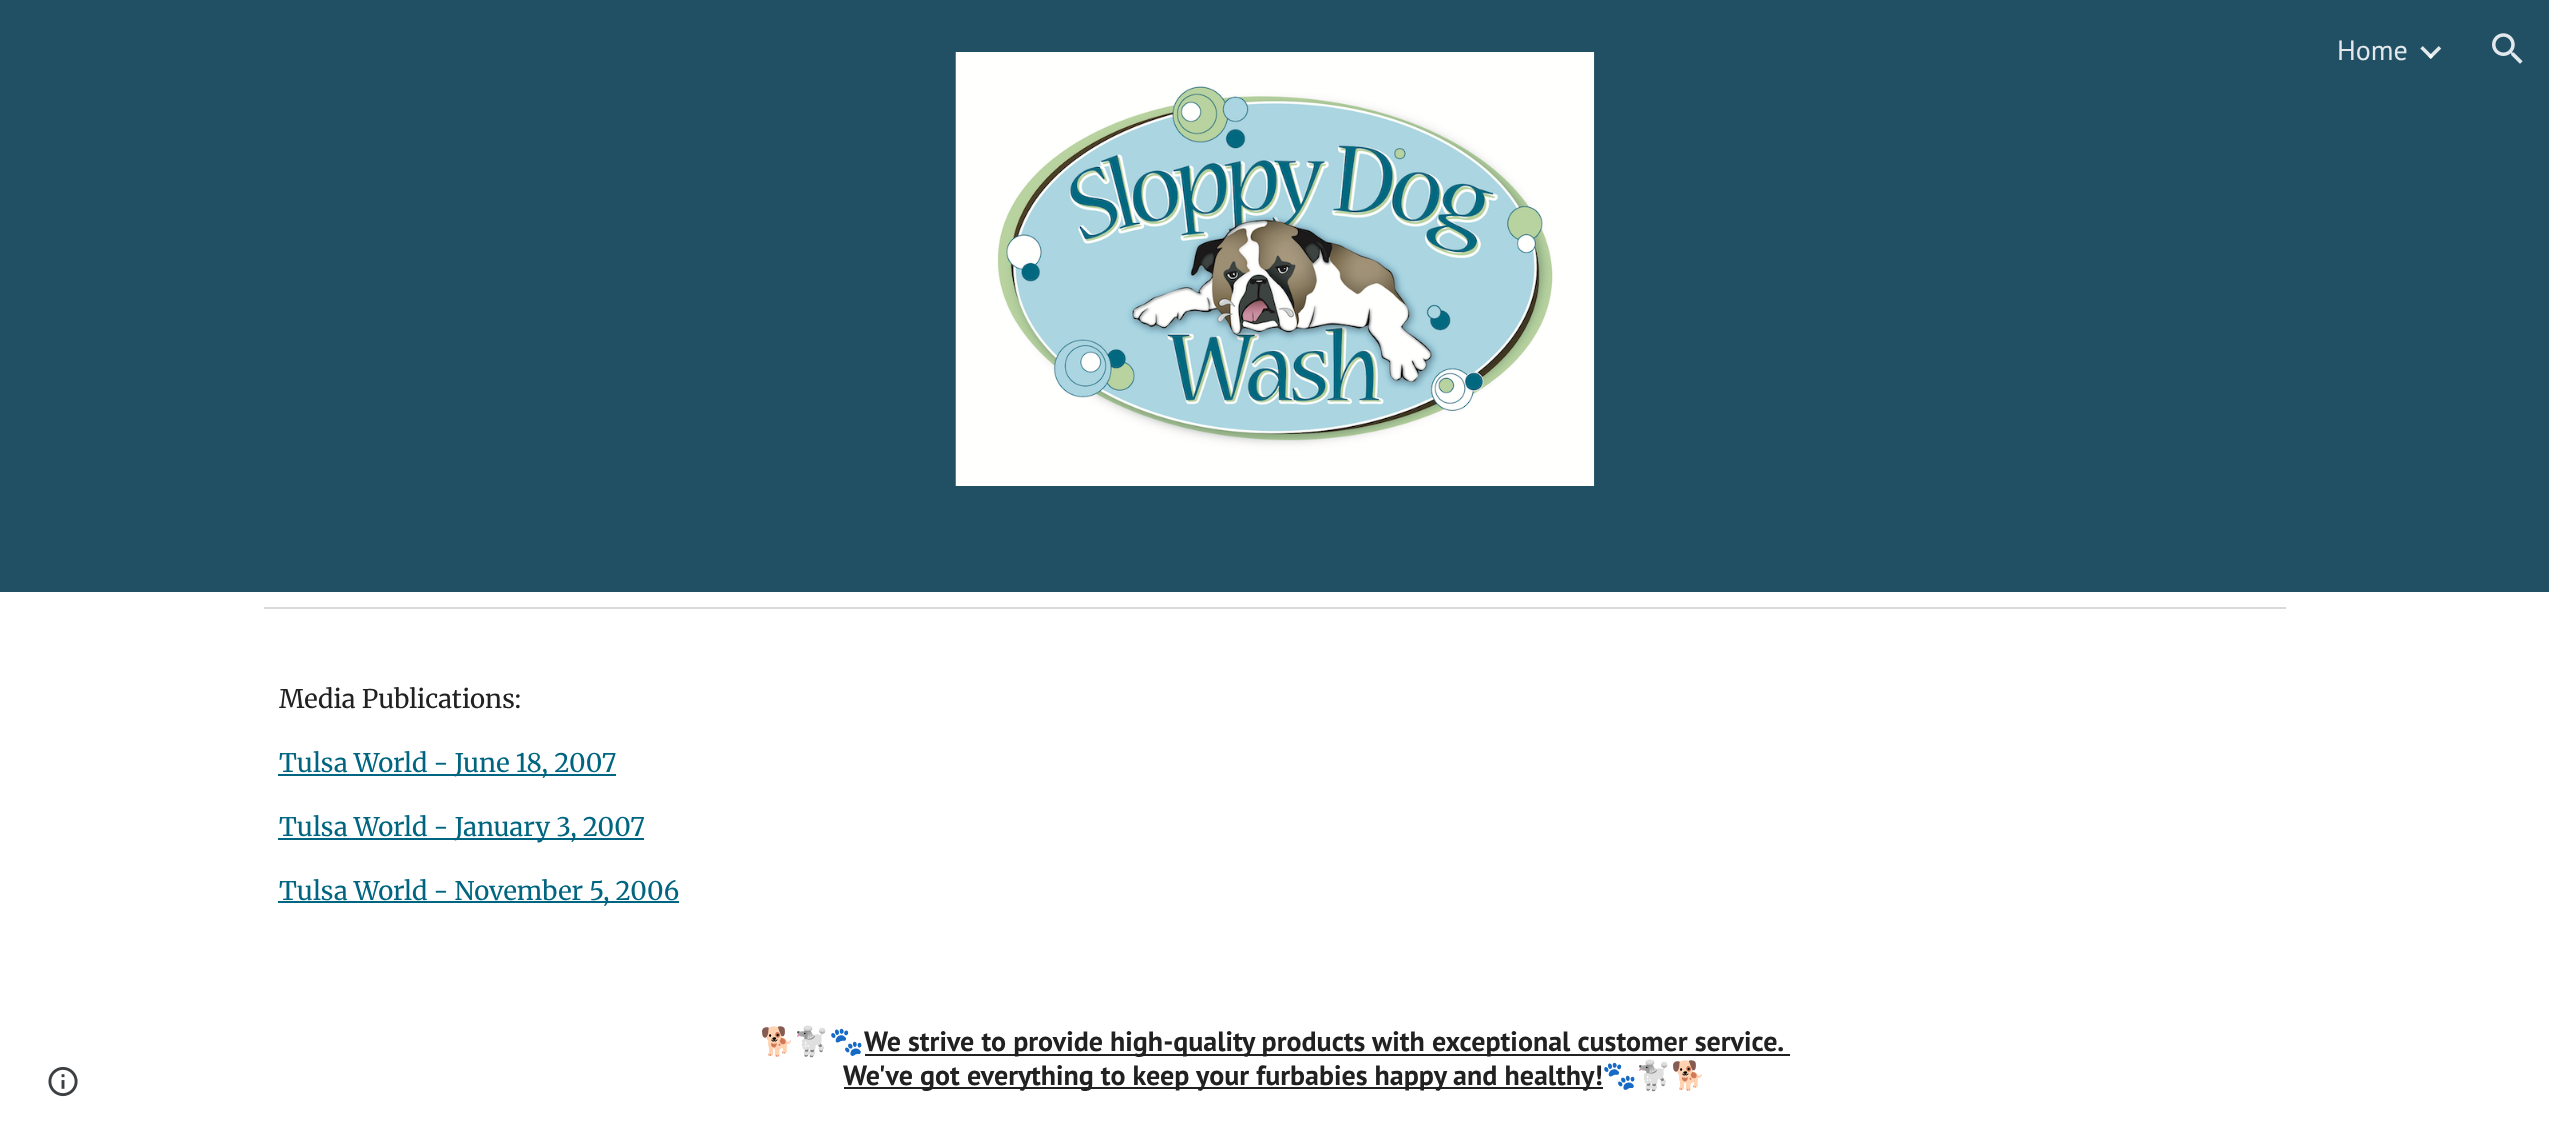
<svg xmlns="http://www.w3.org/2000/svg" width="2549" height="1141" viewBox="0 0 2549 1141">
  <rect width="100%" height="100%" fill="#fff"/>
  <path d="M0 0h2549v592H0z" fill="#215064"/>
  <image x="2420" y="46" width="22" height="13" href="img/1.png"/>
  <image x="2492" y="33" width="31" height="31" href="img/2.png"/>
  <image x="48" y="1066" width="30" height="31" href="img/3.png"/>
  <image x="955" y="52" width="640" height="434" href="img/4.png"/>
  <path d="M264 607h2022v2H264z" fill="#d9d9d9"/>
  <path d="M278 774h338v2H278z" fill="#006580"/>
  <path d="M278 838h366v2H278z" fill="#006580"/>
  <path d="M278 901h401v2H278z" fill="#006580"/>
  <path d="M865 1054h925v2H865z" fill="#212121"/>
  <path d="M844 1087h759v2H844z" fill="#212121"/>
  <text x="2337" y="60" font-family="PT Sans" font-size="28" fill="#e2e8eb">Home</text>
  <text x="279" y="708" font-family="Merriweather" font-size="25.7" fill="#212121">Media Publications:</text>
  <g font-family="Merriweather" font-size="25.7" fill="#006580">
    <text x="279" y="772">Tulsa World - June 18, 2007</text>
    <text x="279" y="836">Tulsa World - January 3, 2007</text>
    <text x="279" y="900">Tulsa World - November 5, 2006</text>
  </g>
  <text x="760" y="1051" font-family="Noto Color Emoji" font-size="28" fill="#212121">🐕🐩🐾</text>
  <g font-family="PT Sans" font-size="28" font-weight="bold" fill="#212121">
    <text x="864" y="1051">We strive to provide high-quality products with exceptional customer service.</text>
    <text x="843" y="1085">We've got everything to keep your furbabies happy and healthy!</text>
  </g>
  <text x="1602" y="1085" font-family="Noto Color Emoji" font-size="28" fill="#212121">🐾🐩🐕</text>
</svg>
